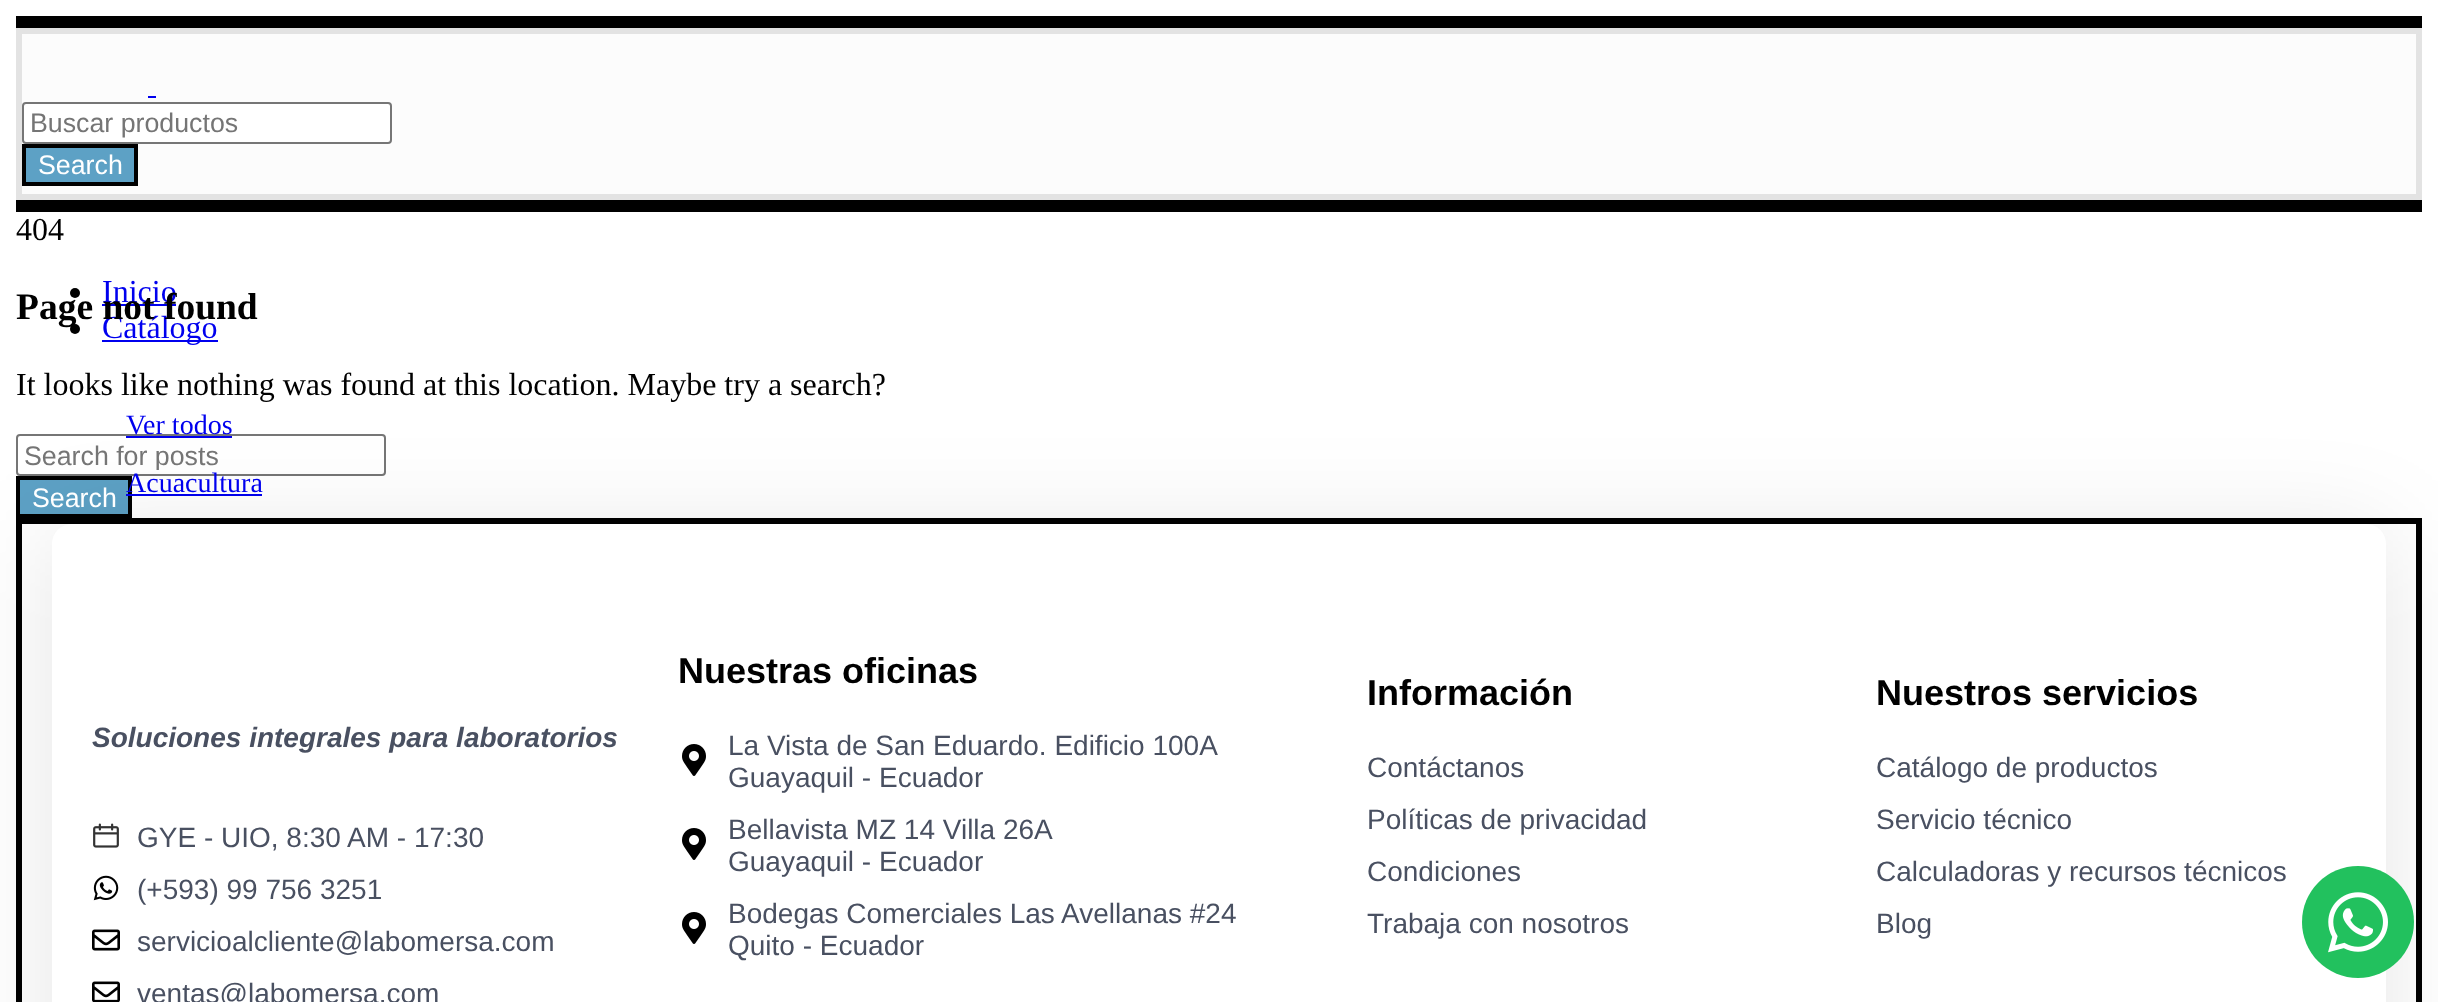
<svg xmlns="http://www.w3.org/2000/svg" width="2438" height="1002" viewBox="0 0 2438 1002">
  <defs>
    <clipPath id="clip1"><path d="M24 440h354v30H24z"/></clipPath>
  </defs>
  <rect width="100%" height="100%" fill="#fff"/>
  <path d="M16 16h2406v12H16z" fill="#000"/>
  <path d="M19 31h2400v166H19z" fill="#fcfcfc" stroke="#e3e3e3" stroke-width="6"/>
  <path d="M148 96h8v2H148z" fill="#00e"/>
  <rect x="23" y="103" width="368" height="40" rx="3" fill="#fff" stroke="#767676" stroke-width="2"/>
  <path d="M24 146h112v38H24z" fill="#5da1c5" stroke="#000" stroke-width="4"/>
  <circle cx="75" cy="293" r="5" fill="#000"/>
  <path d="M102 304h74v2H102z" fill="#00e"/>
  <circle cx="75" cy="329" r="5" fill="#000"/>
  <path d="M102 340h116v2H102z" fill="#00e"/>
  <rect x="17" y="435" width="368" height="40" rx="3" fill="none" stroke="#767676" stroke-width="2"/>
  <path d="M126 436h106v2H126z" fill="#00e"/>
  <path d="M18 478h112v38H18z" fill="#5da1c5" stroke="#000" stroke-width="4"/>
  <path d="M126 494h136v2H126z" fill="#00e"/>
  <path d="M16 200h2406v12H16z" fill="#000"/>
  <path d="M19 521h2400v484H19z" fill="none" stroke="#000" stroke-width="6"/>
  <rect x="52" y="534" width="2334" height="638" rx="20" fill="#0000001a" filter="blur(50px)"/>
  <rect x="52" y="524" width="2334" height="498" rx="20" fill="#fff"/>
  <image x="93" y="823" width="26" height="25" href="img/1.png"/>
  <image x="93" y="875" width="26" height="26" href="img/2.png"/>
  <image x="92" y="929" width="28" height="22" href="img/3.png"/>
  <image x="92" y="981" width="28" height="21" href="img/4.png"/>
  <image x="682" y="744" width="24" height="32" href="img/5.png"/>
  <image x="682" y="828" width="24" height="32" href="img/5.png"/>
  <image x="682" y="912" width="24" height="32" href="img/5.png"/>
  <circle cx="2358" cy="922" r="56" fill="#22c15e"/>
  <image x="2328" y="892" width="60" height="61" href="img/6.png"/>
  <text x="30" y="132" font-family="Liberation Sans" font-size="26.75" fill="#757575">Buscar productos</text>
  <text x="38" y="174" font-family="Liberation Sans" font-size="26.75" fill="#fff">Search</text>
  <g font-family="Liberation Serif" font-size="32" fill="#00e">
    <text x="102" y="302">Inicio</text>
    <text x="102" y="338">Catálogo</text>
  </g>
  <g font-family="Liberation Serif" font-size="28" fill="#00e">
    <text x="126" y="434">Ver todos</text>
    <text x="126" y="492">Acuacultura</text>
  </g>
  <text x="16" y="240" font-family="Liberation Serif" font-size="32" fill="#000">404</text>
  <text x="16" y="319" font-family="Liberation Serif" font-size="37.5" font-weight="bold" fill="#000">Page not found</text>
  <text x="16" y="395" font-family="Liberation Serif" font-size="32" fill="#000">It looks like nothing was found at this location. Maybe try a search?</text>
  <g clip-path="url(#clip1)">
    <text x="24" y="465" font-family="Liberation Sans" font-size="26.75" fill="#757575">Search for posts</text>
  </g>
  <text x="32" y="507" font-family="Liberation Sans" font-size="26.75" fill="#fff">Search</text>
  <text x="92" y="747" font-family="Liberation Sans" font-size="28" font-weight="bold" font-style="italic" fill="#495061">Soluciones integrales para laboratorios</text>
  <g font-family="Liberation Sans" font-size="28" fill="#495061">
    <text x="137" y="847">GYE - UIO, 8:30 AM - 17:30</text>
    <text x="137" y="899">(+593) 99 756 3251</text>
    <text x="137" y="951">servicioalcliente@labomersa.com</text>
    <text x="137" y="1003">ventas@labomersa.com</text>
  </g>
  <text x="678" y="683" font-family="Liberation Sans" font-size="36" font-weight="bold" fill="#000">Nuestras oficinas</text>
  <g font-family="Liberation Sans" font-size="28" fill="#495061">
    <text x="728" y="755">La Vista de San Eduardo. Edificio 100A</text>
    <text x="728" y="787">Guayaquil - Ecuador</text>
    <text x="728" y="839">Bellavista MZ 14 Villa 26A</text>
    <text x="728" y="871">Guayaquil - Ecuador</text>
    <text x="728" y="923">Bodegas Comerciales Las Avellanas #24</text>
    <text x="728" y="955">Quito - Ecuador</text>
  </g>
  <text x="1367" y="705" font-family="Liberation Sans" font-size="36" font-weight="bold" fill="#000">Información</text>
  <g font-family="Liberation Sans" font-size="28" fill="#495061">
    <text x="1367" y="777">Contáctanos</text>
    <text x="1367" y="829">Políticas de privacidad</text>
    <text x="1367" y="881">Condiciones</text>
    <text x="1367" y="933">Trabaja con nosotros</text>
  </g>
  <text x="1876" y="705" font-family="Liberation Sans" font-size="36" font-weight="bold" fill="#000">Nuestros servicios</text>
  <g font-family="Liberation Sans" font-size="28" fill="#495061">
    <text x="1876" y="777">Catálogo de productos</text>
    <text x="1876" y="829">Servicio técnico</text>
    <text x="1876" y="881">Calculadoras y recursos técnicos</text>
    <text x="1876" y="933">Blog</text>
  </g>
</svg>
